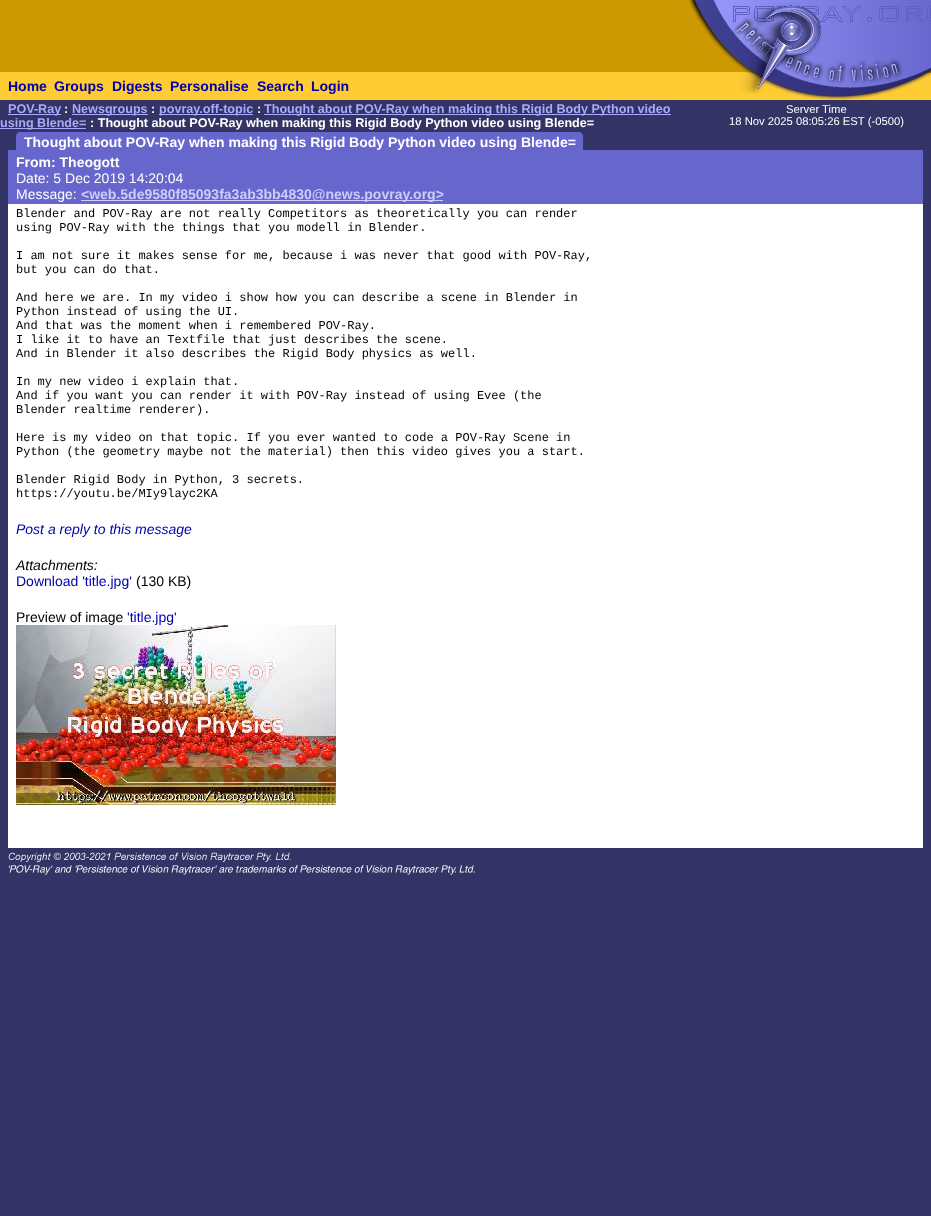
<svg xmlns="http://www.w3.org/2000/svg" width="931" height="1216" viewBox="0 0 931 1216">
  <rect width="100%" height="100%" fill="#336"/>
  <path d="M0 0h739v72H0z" fill="#c90"/>
  <image x="686" y="0" width="53" height="68" href="img/1.png"/>
  <image x="739" y="0" width="40" height="72" href="img/2.png"/>
  <image x="779" y="0" width="152" height="72" href="img/3.png"/>
  <path d="M0 72h739v28H0z" fill="#fc3"/>
  <path d="M739 98h40v2H739z" fill="#fc3"/>
  <image x="739" y="72" width="40" height="26" href="img/4.png"/>
  <image x="779" y="72" width="152" height="28" href="img/5.png"/>
  <path d="M8 114h53v1H8z" fill="#aaf"/>
  <path d="M72 114h76v1H72z" fill="#aaf"/>
  <path d="M159 114h94v1H159z" fill="#aaf"/>
  <path d="M264 114h407v1H264z" fill="#aaf"/>
  <path d="M0 128h86v1H0z" fill="#aaf"/>
  <path d="M20 132H579C581 132 583 134 583 136V150H16V136C16 134 18 132 20 132Z" fill="#66c"/>
  <path d="M8 150h915v4H8z" fill="#66c"/>
  <path d="M8 154h915v50H8z" fill="#66c"/>
  <path d="M81 200h362v1H81z" fill="#ccf"/>
  <path d="M8 204h915v2H8z" fill="#fff"/>
  <path d="M8 206h915v642H8z" fill="#fff"/>
  <image x="16" y="625" width="320" height="180" href="img/6.png"/>
  <image x="8" y="852" width="467" height="23" href="img/7.png"/>
  <g font-family="Liberation Sans" font-size="14" font-weight="bold" fill="#00a">
    <text x="8" y="91">Home</text>
    <text x="54" y="91">Groups</text>
    <text x="112" y="91">Digests</text>
    <text x="170" y="91">Personalise</text>
    <text x="257" y="91">Search</text>
    <text x="311" y="91">Login</text>
  </g>
  <text x="8" y="113" font-family="Liberation Sans" font-size="12.6" font-weight="bold" fill="#aaf">POV-Ray</text>
  <text x="64" y="113" font-family="Liberation Sans" font-size="12.6" font-weight="bold" fill="#fff">:</text>
  <text x="72" y="113" font-family="Liberation Sans" font-size="12.6" font-weight="bold" fill="#aaf">Newsgroups</text>
  <text x="151" y="113" font-family="Liberation Sans" font-size="12.6" font-weight="bold" fill="#fff">:</text>
  <text x="159" y="113" font-family="Liberation Sans" font-size="12.6" font-weight="bold" fill="#aaf">povray.off-topic</text>
  <text x="257" y="113" font-family="Liberation Sans" font-size="12.6" font-weight="bold" fill="#fff">:</text>
  <g font-family="Liberation Sans" font-size="12.6" font-weight="bold" fill="#aaf">
    <text x="264" y="113">Thought about POV-Ray when making this Rigid Body Python video</text>
    <text x="0" y="127">using Blende=</text>
  </g>
  <text x="90" y="127" font-family="Liberation Sans" font-size="12.6" font-weight="bold" fill="#fff">: Thought about POV-Ray when making this Rigid Body Python video using Blende=</text>
  <g font-family="Liberation Sans" font-size="11.25" fill="#fff">
    <text x="786" y="113">Server Time</text>
    <text x="729" y="125">18 Nov 2025 08:05:26 EST (-0500)</text>
  </g>
  <g font-family="Liberation Sans" font-size="14" font-weight="bold" fill="#fff">
    <text x="24" y="147">Thought about POV-Ray when making this Rigid Body Python video using Blende=</text>
    <text x="16" y="167">From: Theogott</text>
  </g>
  <g font-family="Liberation Sans" font-size="14" fill="#fff">
    <text x="16" y="183">Date: 5 Dec 2019 14:20:04</text>
    <text x="16" y="199">Message:</text>
  </g>
  <text x="81" y="199" font-family="Liberation Sans" font-size="14" font-weight="bold" fill="#ccf">&lt;web.5de9580f85093fa3ab3bb4830@news.povray.org&gt;</text>
  <g font-family="Liberation Mono" font-size="12" fill="#000">
    <text x="16" y="217">Blender and POV-Ray are not really Competitors as theoretically you can render</text>
    <text x="16" y="231">using POV-Ray with the things that you modell in Blender.</text>
    <text x="16" y="259">I am not sure it makes sense for me, because i was never that good with POV-Ray,</text>
    <text x="16" y="273">but you can do that.</text>
    <text x="16" y="301">And here we are. In my video i show how you can describe a scene in Blender in</text>
    <text x="16" y="315">Python instead of using the UI.</text>
    <text x="16" y="329">And that was the moment when i remembered POV-Ray.</text>
    <text x="16" y="343">I like it to have an Textfile that just describes the scene.</text>
    <text x="16" y="357">And in Blender it also describes the Rigid Body physics as well.</text>
    <text x="16" y="385">In my new video i explain that.</text>
    <text x="16" y="399">And if you want you can render it with POV-Ray instead of using Evee (the</text>
    <text x="16" y="413">Blender realtime renderer).</text>
    <text x="16" y="441">Here is my video on that topic. If you ever wanted to code a POV-Ray Scene in</text>
    <text x="16" y="455">Python (the geometry maybe not the material) then this video gives you a start.</text>
    <text x="16" y="483">Blender Rigid Body in Python, 3 secrets.</text>
    <text x="16" y="497">https://youtu.be/MIy9layc2KA</text>
  </g>
  <text x="16" y="534" font-family="Liberation Sans" font-size="14" font-style="italic" fill="#00a">Post a reply to this message</text>
  <text x="16" y="570" font-family="Liberation Sans" font-size="14" font-style="italic" fill="#000">Attachments:</text>
  <text x="16" y="586" font-family="Liberation Sans" font-size="14" fill="#00a">Download 'title.jpg'</text>
  <g font-family="Liberation Sans" font-size="14" fill="#000">
    <text x="136" y="586">(130 KB)</text>
    <text x="16" y="622">Preview of image</text>
  </g>
  <text x="127" y="622" font-family="Liberation Sans" font-size="14" fill="#00a">'title.jpg'</text>
</svg>
